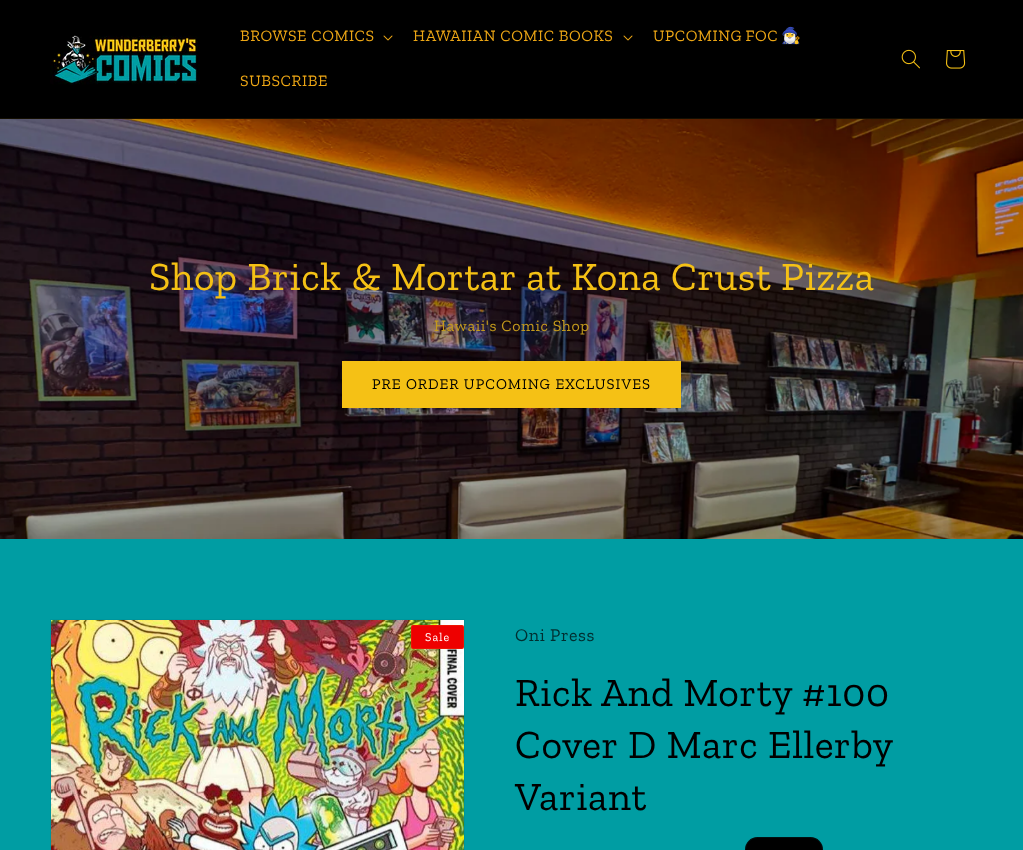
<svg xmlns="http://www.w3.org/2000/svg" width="1023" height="850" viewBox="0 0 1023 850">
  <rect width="100%" height="100%" fill="#009da3"/>
  <path d="M0 0h1023v118H0z" fill="#000"/>
  <path d="M0 118h1023v1H0z" fill="#140f02"/>
  <image x="50" y="35" width="150" height="50" href="img/1.png"/>
  <image x="383" y="35" width="10" height="6" href="img/2.png"/>
  <image x="623" y="35" width="10" height="6" href="img/2.png"/>
  <image x="901" y="49" width="19" height="20" href="img/3.png"/>
  <image x="946" y="50" width="20" height="19" href="img/4.png"/>
  <image x="0" y="119" width="1023" height="420" href="img/5.png"/>
  <path d="M342 361h339v47H342z" fill="#f5c115"/>
  <path d="M50.5 619.5h414v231H50.5z" fill="none" stroke="#00959b"/>
  <image x="51" y="620" width="413" height="230" href="img/6.png"/>
  <rect x="411" y="625" width="53" height="24" rx="2" fill="#e00"/>
  <rect x="411.5" y="625.5" width="52" height="23" rx="1.5" fill="none" stroke="#f5c1151a"/>
  <rect x="745" y="837" width="78" height="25" rx="12.5" fill="#000"/>
  <rect x="745.5" y="837.5" width="77" height="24" rx="12" fill="none" stroke="#009da31a"/>
  <g font-family="Zilla Slab" font-size="16" letter-spacing="0.6" fill="#eca615">
    <text x="240" y="41">BROWSE COMICS</text>
    <text x="413" y="41">HAWAIIAN COMIC BOOKS</text>
    <text x="653" y="41" word-spacing="-1">UPCOMING FOC</text>
  </g>
  <text x="781" y="41" font-family="Noto Color Emoji" font-size="16" letter-spacing="0.6" fill="#eca615">🧙‍♂️</text>
  <text x="240" y="86" font-family="Zilla Slab" font-size="16" letter-spacing="0.6" fill="#eca615">SUBSCRIBE</text>
  <text x="149" y="290" font-family="Zilla Slab" font-size="40" letter-spacing="0.6" fill="#f5c115">Shop Brick &amp; Mortar at Kona Crust Pizza</text>
  <text x="434" y="331" font-family="Zilla Slab" font-size="16" letter-spacing="0.6" fill="#c49a1c">Hawaii's Comic Shop</text>
  <text x="372" y="389" font-family="Zilla Slab" font-size="15" letter-spacing="1" fill="#000">PRE ORDER UPCOMING EXCLUSIVES</text>
  <text x="425" y="641" font-family="Zilla Slab" font-size="12" letter-spacing="1" fill="#fff">Sale</text>
  <text x="515" y="641" font-family="Zilla Slab" font-size="18" letter-spacing="0.6" fill="#002f31">Oni Press</text>
  <g font-family="Zilla Slab" font-size="40" letter-spacing="0.6" fill="#000">
    <text x="515" y="706">Rick And Morty #100</text>
    <text x="515" y="758">Cover D Marc Ellerby</text>
    <text x="515" y="810">Variant</text>
  </g>
</svg>
